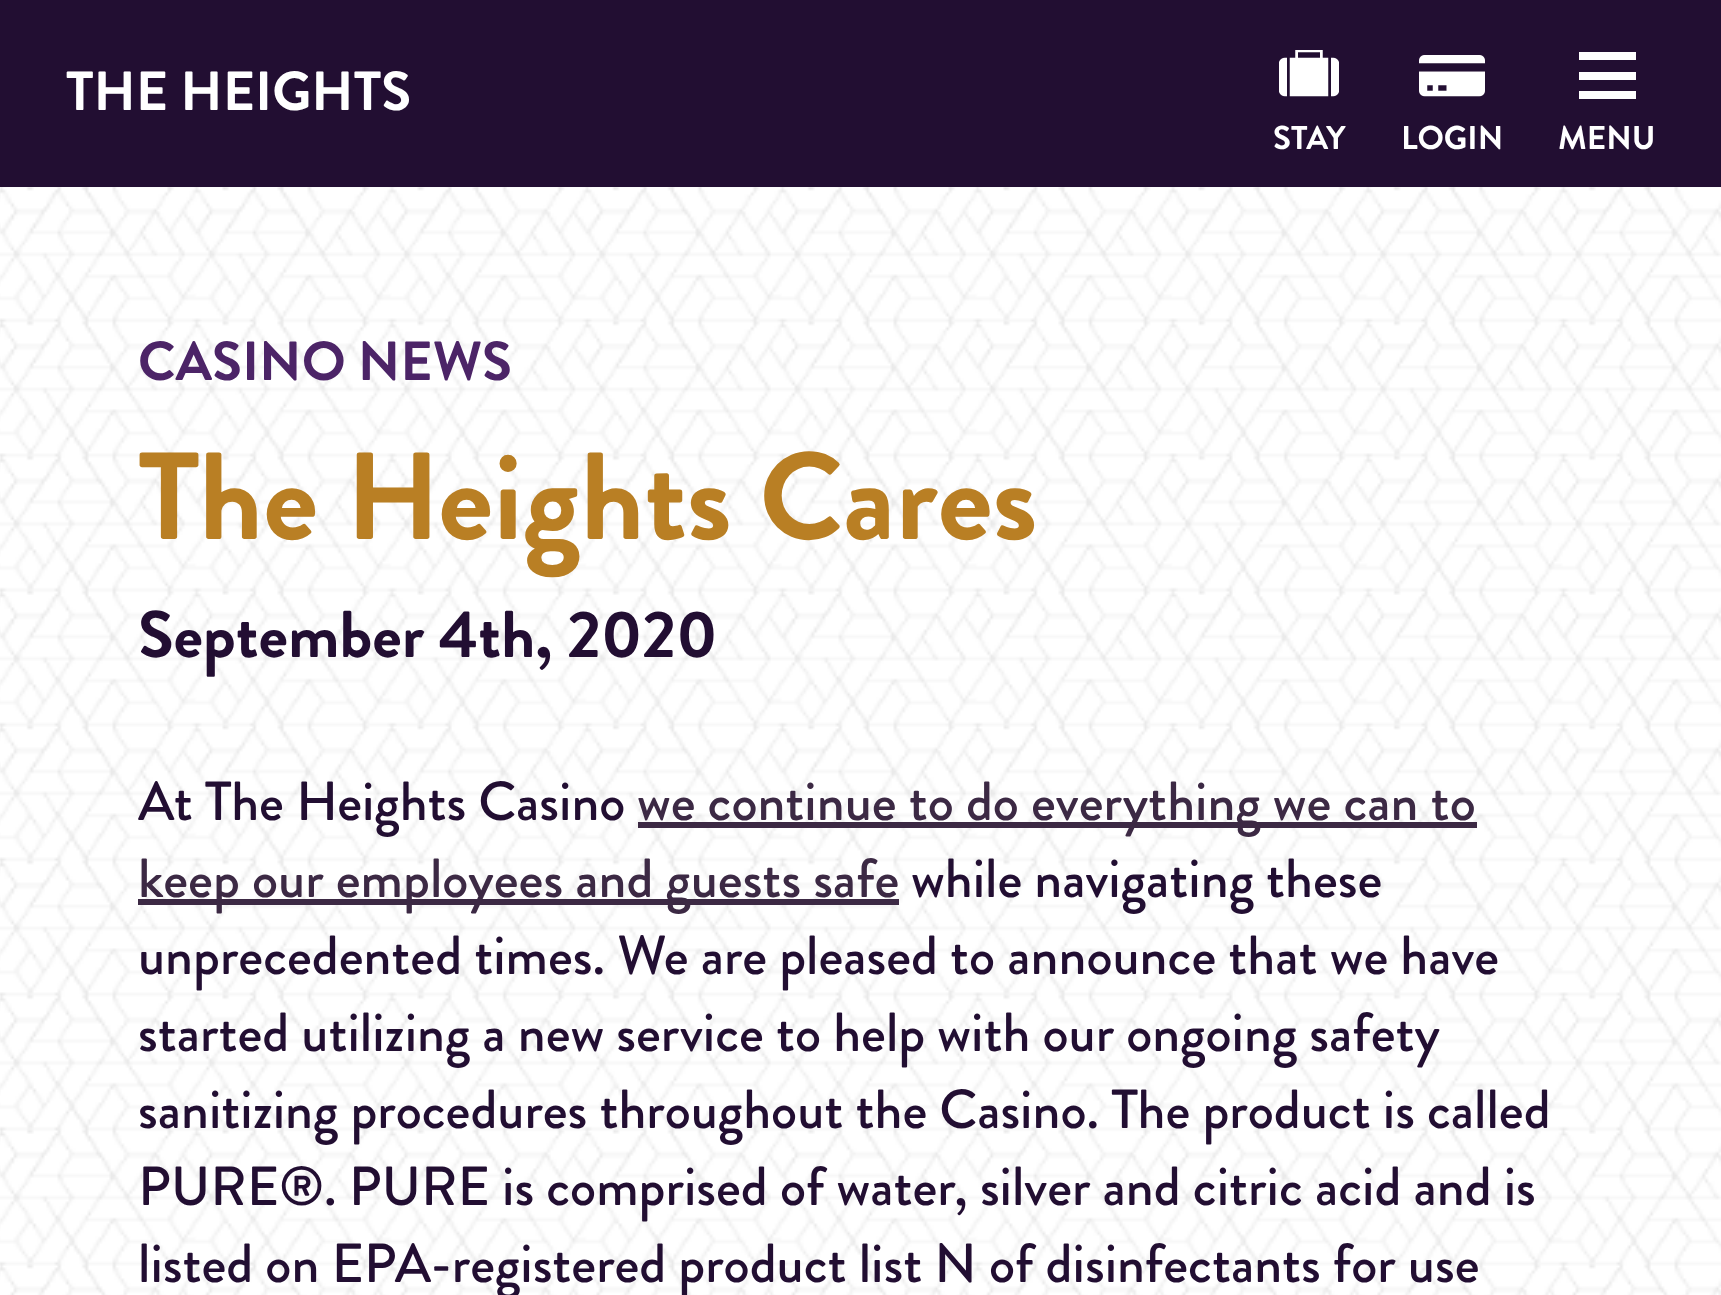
<svg xmlns="http://www.w3.org/2000/svg" width="1721" height="1295" viewBox="0 0 1721 1295">
  <defs>
    <clipPath id="clip1"><path d="M1579 50h57v49H1579z"/></clipPath>
  </defs>
  <rect width="100%" height="100%" fill="#220e32"/>
  <image x="1279" y="50" width="60" height="47" href="img/1.png"/>
  <image x="1419" y="55" width="66" height="42" href="img/2.png"/>
  <g clip-path="url(#clip1)">
    <path d="M1578 52H1636V60H1578ZM1578 72H1636V80H1578ZM1578 91H1636V99H1578Z" fill="#fff"/>
  </g>
  <image x="0" y="187" width="1721" height="1108" href="img/3.png"/>
  <path d="M638 822h839v6H638z" fill="#3c2944"/>
  <path d="M138 899h761v6H138z" fill="#3c2944"/>
  <text x="66" y="110" font-family="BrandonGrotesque" font-size="55" font-weight="bold" fill="#fff">THE HEIGHTS</text>
  <g font-family="BrandonGrotesque" font-size="33" font-weight="bold" fill="#fff">
    <text x="1273" y="149">STAY</text>
    <text x="1401" y="149">LOGIN</text>
    <text x="1558" y="149">MENU</text>
  </g>
  <text x="138" y="380" font-family="BrandonGrotesque" font-size="55" font-weight="bold" fill="#4c2467">CASINO NEWS</text>
  <text x="138" y="539" font-family="BrandonGrotesque" font-size="123.75" font-weight="bold" fill="#b97f24">The Heights Cares</text>
  <text x="138" y="657" font-family="BrandonGrotesque" font-size="66" font-weight="bold" fill="#220e32">September 4th, 2020</text>
  <text x="138" y="820" font-family="BrandonGrotesque" font-size="55" font-weight="500" fill="#220e32">At The Heights Casino</text>
  <g font-family="BrandonGrotesque" font-size="55" font-weight="500" fill="#3c2944">
    <text x="637" y="820">we continue to do everything we can to</text>
    <text x="138" y="897">keep our employees and guests safe</text>
  </g>
  <g font-family="BrandonGrotesque" font-size="55" font-weight="500" fill="#220e32">
    <text x="911" y="897">while navigating these</text>
    <text x="138" y="974">unprecedented times. We are pleased to announce that we have</text>
    <text x="138" y="1051">started utilizing a new service to help with our ongoing safety</text>
    <text x="138" y="1128">sanitizing procedures throughout the Casino. The product is called</text>
    <text x="138" y="1205">PURE®. PURE is comprised of water, silver and citric acid and is</text>
    <text x="138" y="1282">listed on EPA-registered product list N of disinfectants for use</text>
  </g>
</svg>
